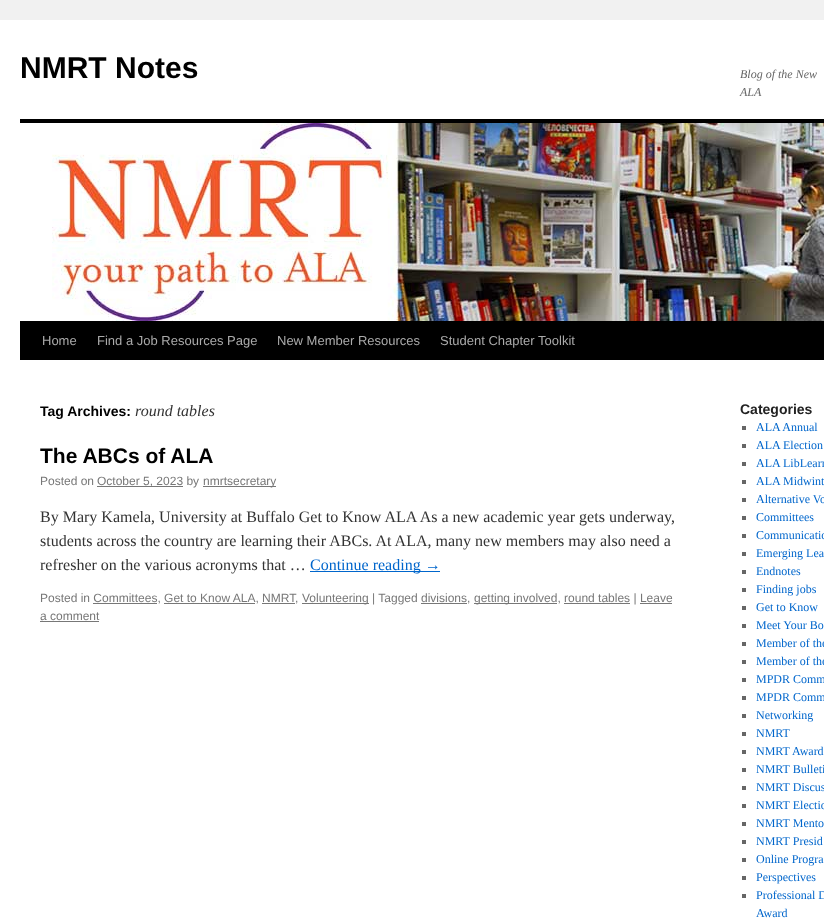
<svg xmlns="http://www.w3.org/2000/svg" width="824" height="918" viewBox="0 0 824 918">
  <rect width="100%" height="100%" fill="#f1f1f1"/>
  <path d="M0 20h824v898H0z" fill="#fff"/>
  <path d="M20 119h804v4H20z" fill="#000"/>
  <path d="M20 321h804v39H20z" fill="#000"/>
  <image x="52" y="123" width="772" height="198" href="img/1.png"/>
  <path d="M97 486h86v1H97z" fill="#777"/>
  <path d="M203 486h73v1H203z" fill="#777"/>
  <path d="M310 571h130v1H310z" fill="#06c"/>
  <path d="M93 603h64v1H93z" fill="#777"/>
  <path d="M164 603h91v1H164z" fill="#777"/>
  <path d="M421 603h46v1H421z" fill="#777"/>
  <path d="M474 603h83v1H474z" fill="#777"/>
  <path d="M564 603h66v1H564z" fill="#777"/>
  <path d="M262 603h33v1H262z" fill="#777"/>
  <path d="M302 603h67v1H302z" fill="#777"/>
  <path d="M640 603h32v1H640z" fill="#777"/>
  <path d="M40 621h59v1H40z" fill="#777"/>
  <path d="M742 426h4v4H742z" fill="#666"/>
  <path d="M742 444h4v4H742z" fill="#666"/>
  <path d="M742 462h4v4H742z" fill="#666"/>
  <path d="M742 480h4v4H742z" fill="#666"/>
  <path d="M742 498h4v4H742z" fill="#666"/>
  <path d="M742 516h4v4H742z" fill="#666"/>
  <path d="M742 534h4v4H742z" fill="#666"/>
  <path d="M742 552h4v4H742z" fill="#666"/>
  <path d="M742 570h4v4H742z" fill="#666"/>
  <path d="M742 588h4v4H742z" fill="#666"/>
  <path d="M742 606h4v4H742z" fill="#666"/>
  <path d="M742 624h4v4H742z" fill="#666"/>
  <path d="M742 642h4v4H742z" fill="#666"/>
  <path d="M742 660h4v4H742z" fill="#666"/>
  <path d="M742 678h4v4H742z" fill="#666"/>
  <path d="M742 696h4v4H742z" fill="#666"/>
  <path d="M742 714h4v4H742z" fill="#666"/>
  <path d="M742 732h4v4H742z" fill="#666"/>
  <path d="M742 750h4v4H742z" fill="#666"/>
  <path d="M742 768h4v4H742z" fill="#666"/>
  <path d="M742 786h4v4H742z" fill="#666"/>
  <path d="M742 804h4v4H742z" fill="#666"/>
  <path d="M742 822h4v4H742z" fill="#666"/>
  <path d="M742 840h4v4H742z" fill="#666"/>
  <path d="M742 858h4v4H742z" fill="#666"/>
  <path d="M742 876h4v4H742z" fill="#666"/>
  <path d="M742 894h4v4H742z" fill="#666"/>
  <text x="20" y="78" font-family="Liberation Sans" font-size="30" font-weight="bold" fill="#000">NMRT Notes</text>
  <g font-family="Liberation Serif" font-size="12" font-style="italic" fill="#666">
    <text x="740" y="78">Blog of the New</text>
    <text x="740" y="96">ALA</text>
  </g>
  <g font-family="Liberation Sans" font-size="13" fill="#aaa">
    <text x="42" y="345">Home</text>
    <text x="97" y="345">Find a Job Resources Page</text>
    <text x="277" y="345">New Member Resources</text>
    <text x="440" y="345">Student Chapter Toolkit</text>
  </g>
  <text x="40" y="416" font-family="Liberation Sans" font-size="14" font-weight="bold" fill="#000">Tag Archives:</text>
  <text x="135" y="416" font-family="Liberation Serif" font-size="16" font-style="italic" fill="#333">round tables</text>
  <text x="40" y="463" font-family="Liberation Sans" font-size="21" font-weight="bold" fill="#000">The ABCs of ALA</text>
  <g font-family="Liberation Sans" font-size="12" fill="#777">
    <text x="40" y="485">Posted on</text>
    <text x="97" y="485">October 5, 2023 by</text>
    <text x="203" y="485">nmrtsecretary</text>
  </g>
  <g font-family="Liberation Serif" font-size="16" fill="#333">
    <text x="40" y="522">By Mary Kamela, University at Buffalo Get to Know ALA As a new academic year gets underway,</text>
    <text x="40" y="546">students across the country are learning their ABCs. At ALA, many new members may also need a</text>
    <text x="40" y="570">refresher on the various acronyms that …</text>
  </g>
  <text x="310" y="570" font-family="Liberation Serif" font-size="16" fill="#06c">Continue reading →</text>
  <g font-family="Liberation Sans" font-size="12" fill="#777">
    <text x="40" y="602">Posted in Committees, Get to Know ALA, NMRT</text>
    <text x="302" y="602">Volunteering | Tagged divisions,</text>
    <text x="474" y="602">getting involved, round tables | Leave</text>
    <text x="295" y="602">,</text>
    <text x="40" y="620">a comment</text>
  </g>
  <text x="740" y="414" font-family="Liberation Sans" font-size="14" font-weight="bold" fill="#222">Categories</text>
  <g font-family="Liberation Serif" font-size="12" fill="#06c">
    <text x="756" y="431">ALA Annual</text>
    <text x="756" y="449">ALA Election</text>
    <text x="756" y="467">ALA LibLearn</text>
    <text x="756" y="485">ALA Midwint</text>
    <text x="756" y="503">Alternative Vo</text>
    <text x="756" y="521">Committees</text>
    <text x="756" y="539">Communicatio</text>
    <text x="756" y="557">Emerging Lea</text>
    <text x="756" y="575">Endnotes</text>
    <text x="756" y="593">Finding jobs</text>
    <text x="756" y="611">Get to Know</text>
    <text x="756" y="629">Meet Your Bo</text>
    <text x="756" y="647">Member of the</text>
    <text x="756" y="665">Member of the</text>
    <text x="756" y="683">MPDR Comm</text>
    <text x="756" y="701">MPDR Comm</text>
    <text x="756" y="719">Networking</text>
    <text x="756" y="737">NMRT</text>
    <text x="756" y="755">NMRT Award</text>
    <text x="756" y="773">NMRT Bulleti</text>
    <text x="756" y="791">NMRT Discus</text>
    <text x="756" y="809">NMRT Electio</text>
    <text x="756" y="827">NMRT Mento</text>
    <text x="756" y="845">NMRT Presid</text>
    <text x="756" y="863">Online Progra</text>
    <text x="756" y="881">Perspectives</text>
    <text x="756" y="899">Professional D</text>
    <text x="756" y="917">Award</text>
  </g>
</svg>
